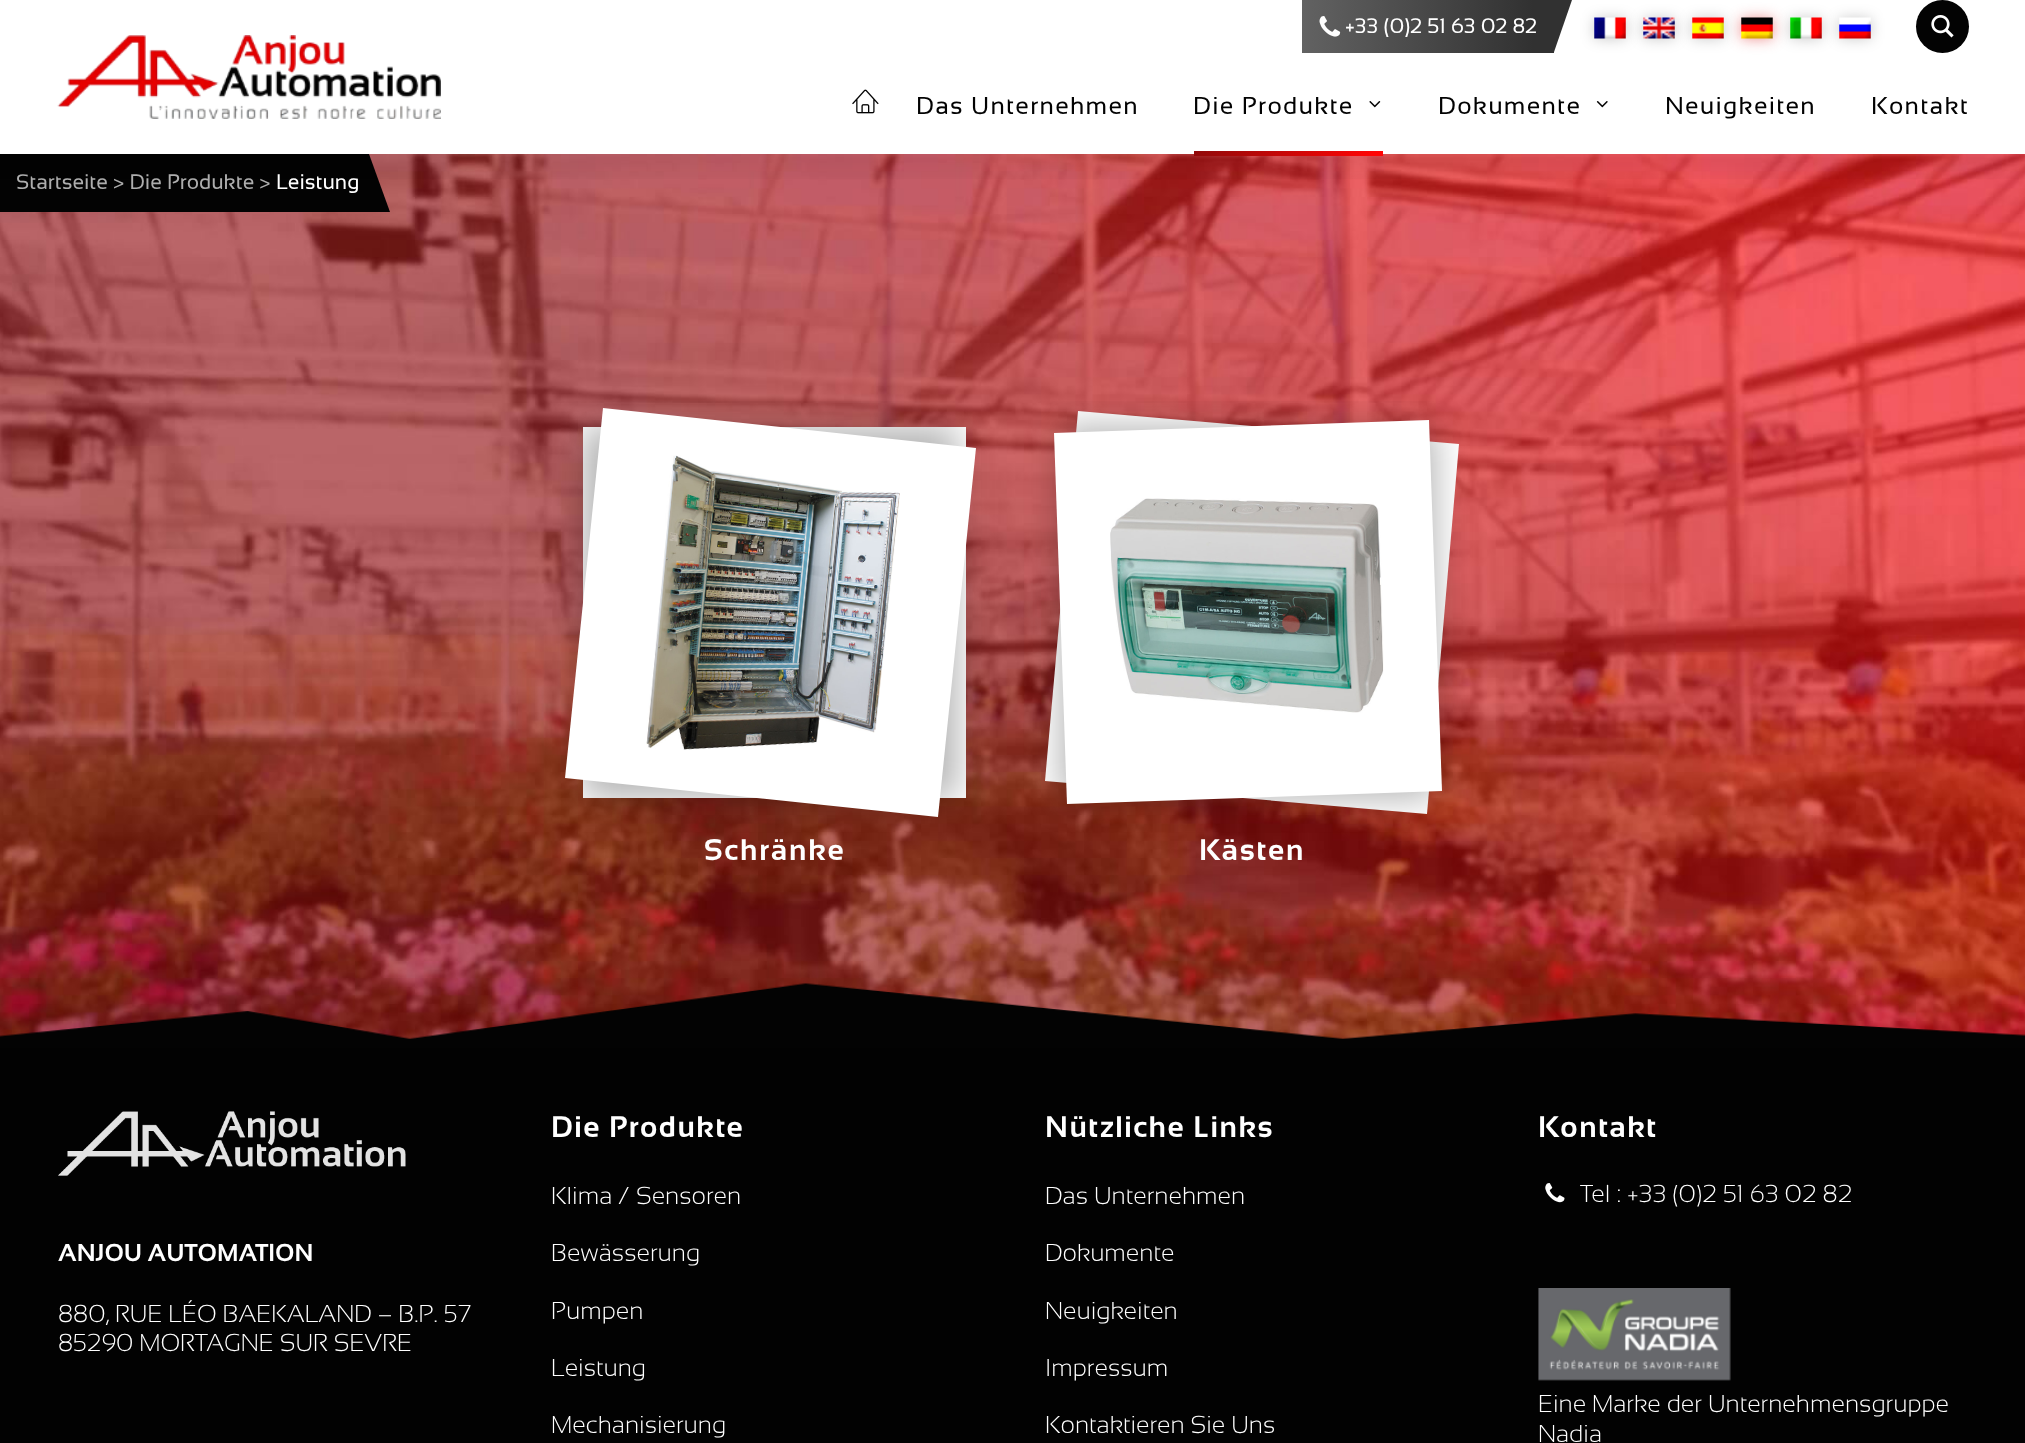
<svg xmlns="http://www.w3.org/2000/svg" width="2025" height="1443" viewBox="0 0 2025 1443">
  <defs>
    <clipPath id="clip1"><path d="M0 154h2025v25H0z"/></clipPath>
    <linearGradient id="g1" gradientUnits="userSpaceOnUse" x1="1302" y1="26" x2="1554" y2="26"><stop offset="0" stop-color="#626262"/><stop offset="0.92" stop-color="#313131"/></linearGradient>
    <linearGradient id="g2" gradientUnits="userSpaceOnUse" x1="1231" y1="106" x2="1345" y2="201"><stop offset="0" stop-color="#900a0a"/><stop offset="0.95" stop-color="#ff0505"/></linearGradient>
    <clipPath id="clip2"><path d="M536 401h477v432H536z"/></clipPath>
    <clipPath id="clip3"><path d="M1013 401h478v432H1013z"/></clipPath>
  </defs>
  <rect width="100%" height="100%" fill="#fff"/>
  <image x="0" y="154" width="2025" height="885" href="img/13.png"/>
  <path d="M0 154h369v58H0z" fill="#030303"/>
  <path d="M369 212V154L390 212Z" fill="#030303"/>
  <g clip-path="url(#clip1)">
    <path d="M-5 0h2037v154H-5z" fill="#0000001f" filter="blur(26px)"/>
  </g>
  <path d="M1302 0h252v53H1302z" fill="url(#g1)"/>
  <image x="1319" y="16" width="22" height="21" href="img/1.png"/>
  <path d="M1554 0H1572L1554 52Z" fill="#313131"/>
  <path d="M1594 18h32v21H1594z" fill="#00000033" filter="blur(7px)"/>
  <image x="1594" y="17" width="32" height="22" href="img/2.png"/>
  <path d="M1643 18h32v21H1643z" fill="#00000033" filter="blur(7px)"/>
  <image x="1643" y="17" width="32" height="22" href="img/3.png"/>
  <path d="M1692 18h32v21H1692z" fill="#00000033" filter="blur(7px)"/>
  <image x="1692" y="17" width="32" height="22" href="img/4.png"/>
  <path d="M1741 18h32v21H1741z" fill="#da121273" filter="blur(7px)"/>
  <image x="1741" y="17" width="32" height="22" href="img/5.png"/>
  <path d="M1790 18h32v21H1790z" fill="#00000033" filter="blur(7px)"/>
  <image x="1790" y="17" width="32" height="22" href="img/6.png"/>
  <path d="M1839 18h32v21H1839z" fill="#00000033" filter="blur(7px)"/>
  <image x="1839" y="17" width="32" height="22" href="img/7.png"/>
  <circle cx="1942.5" cy="26.5" r="26.5" fill="#030303"/>
  <image x="1931" y="15" width="23" height="23" href="img/8.png"/>
  <image x="57" y="35" width="384" height="84" href="img/9.png"/>
  <image x="852" y="89" width="27" height="25" href="img/10.png"/>
  <image x="1369" y="101" width="12" height="7" href="img/11.png"/>
  <path d="M1194 151h189v5H1194z" fill="url(#g2)"/>
  <image x="1596" y="101" width="12" height="7" href="img/12.png"/>
  <path d="M583 427h383v371H583z" fill="#fff"/>
  <g clip-path="url(#clip2)">
    <path d="M583 427h374v371H583z" fill="#0000004d" filter="blur(17.5px)"/>
  </g>
  <path d="M603 408L976 448L938 817L565 778Z" fill="#fff"/>
  <image x="646" y="455" width="254" height="295" href="img/14.png"/>
  <path d="M1078 411L1459 444L1427 814L1045 781Z" fill="#fff"/>
  <g clip-path="url(#clip3)">
    <path d="M1061 427h374v371H1061z" fill="#0000004d" filter="blur(17.5px)"/>
  </g>
  <path d="M1054 433L1429 420L1442 791L1067 804Z" fill="#fff"/>
  <image x="1110" y="498" width="274" height="215" href="img/15.png"/>
  <image x="0" y="983" width="2025" height="65" href="img/16.png"/>
  <path d="M0 1048h2025v395H0z" fill="#020202"/>
  <image x="58" y="1111" width="348" height="65" href="img/17.png"/>
  <image x="1545" y="1183" width="20" height="20" href="img/18.png"/>
  <image x="1538" y="1288" width="193" height="93" href="img/19.png"/>
  <text x="1345" y="33" font-family="Sansation" font-size="21" fill="#fff">+33 (0)2 51 63 02 82</text>
  <g font-family="Sansation" font-size="24.5" letter-spacing="1.25" fill="#020202">
    <text x="916" y="114">Das Unternehmen</text>
    <text x="1193" y="114">Die Produkte</text>
    <text x="1438" y="114">Dokumente</text>
    <text x="1665" y="114">Neuigkeiten</text>
    <text x="1871" y="114">Kontakt</text>
  </g>
  <text x="16" y="189" font-family="Sansation" font-size="21" fill="#adadad">Startseite &gt; Die Produkte &gt;</text>
  <text x="276" y="189" font-family="Sansation" font-size="21" fill="#fff">Leistung</text>
  <g font-family="Sansation" font-size="29.75" font-weight="bold" letter-spacing="1.75" fill="#fff">
    <text x="704" y="860">Schränke</text>
    <text x="1199" y="860">Kästen</text>
  </g>
  <text x="58" y="1261" font-family="Sansation" font-size="24.5" font-weight="bold" fill="#fff">ANJOU AUTOMATION</text>
  <g font-family="Sansation Light" font-size="24.5" font-weight="300" fill="#fff">
    <text x="58" y="1322">880, RUE LÉO BAEKALAND – B.P. 57</text>
    <text x="58" y="1351">85290 MORTAGNE SUR SEVRE</text>
  </g>
  <text x="551" y="1137" font-family="Sansation" font-size="29.75" font-weight="bold" letter-spacing="1.5" fill="#fff">Die Produkte</text>
  <g font-family="Sansation Light" font-size="24.5" font-weight="300" fill="#fff">
    <text x="551" y="1204">Klima / Sensoren</text>
    <text x="551" y="1261">Bewässerung</text>
    <text x="551" y="1319">Pumpen</text>
    <text x="551" y="1376">Leistung</text>
    <text x="551" y="1433">Mechanisierung</text>
  </g>
  <text x="1045" y="1137" font-family="Sansation" font-size="29.75" font-weight="bold" letter-spacing="1.5" fill="#fff">Nützliche Links</text>
  <g font-family="Sansation Light" font-size="24.5" font-weight="300" fill="#fff">
    <text x="1045" y="1204">Das Unternehmen</text>
    <text x="1045" y="1261">Dokumente</text>
    <text x="1045" y="1319">Neuigkeiten</text>
    <text x="1045" y="1376">Impressum</text>
    <text x="1045" y="1433">Kontaktieren Sie Uns</text>
  </g>
  <text x="1538" y="1137" font-family="Sansation" font-size="29.75" font-weight="bold" letter-spacing="1.5" fill="#fff">Kontakt</text>
  <g font-family="Sansation Light" font-size="24.5" font-weight="300" fill="#fff">
    <text x="1580" y="1202">Tel : +33 (0)2 51 63 02 82</text>
    <text x="1538" y="1412">Eine Marke der Unternehmensgruppe</text>
    <text x="1538" y="1442">Nadia</text>
  </g>
</svg>
